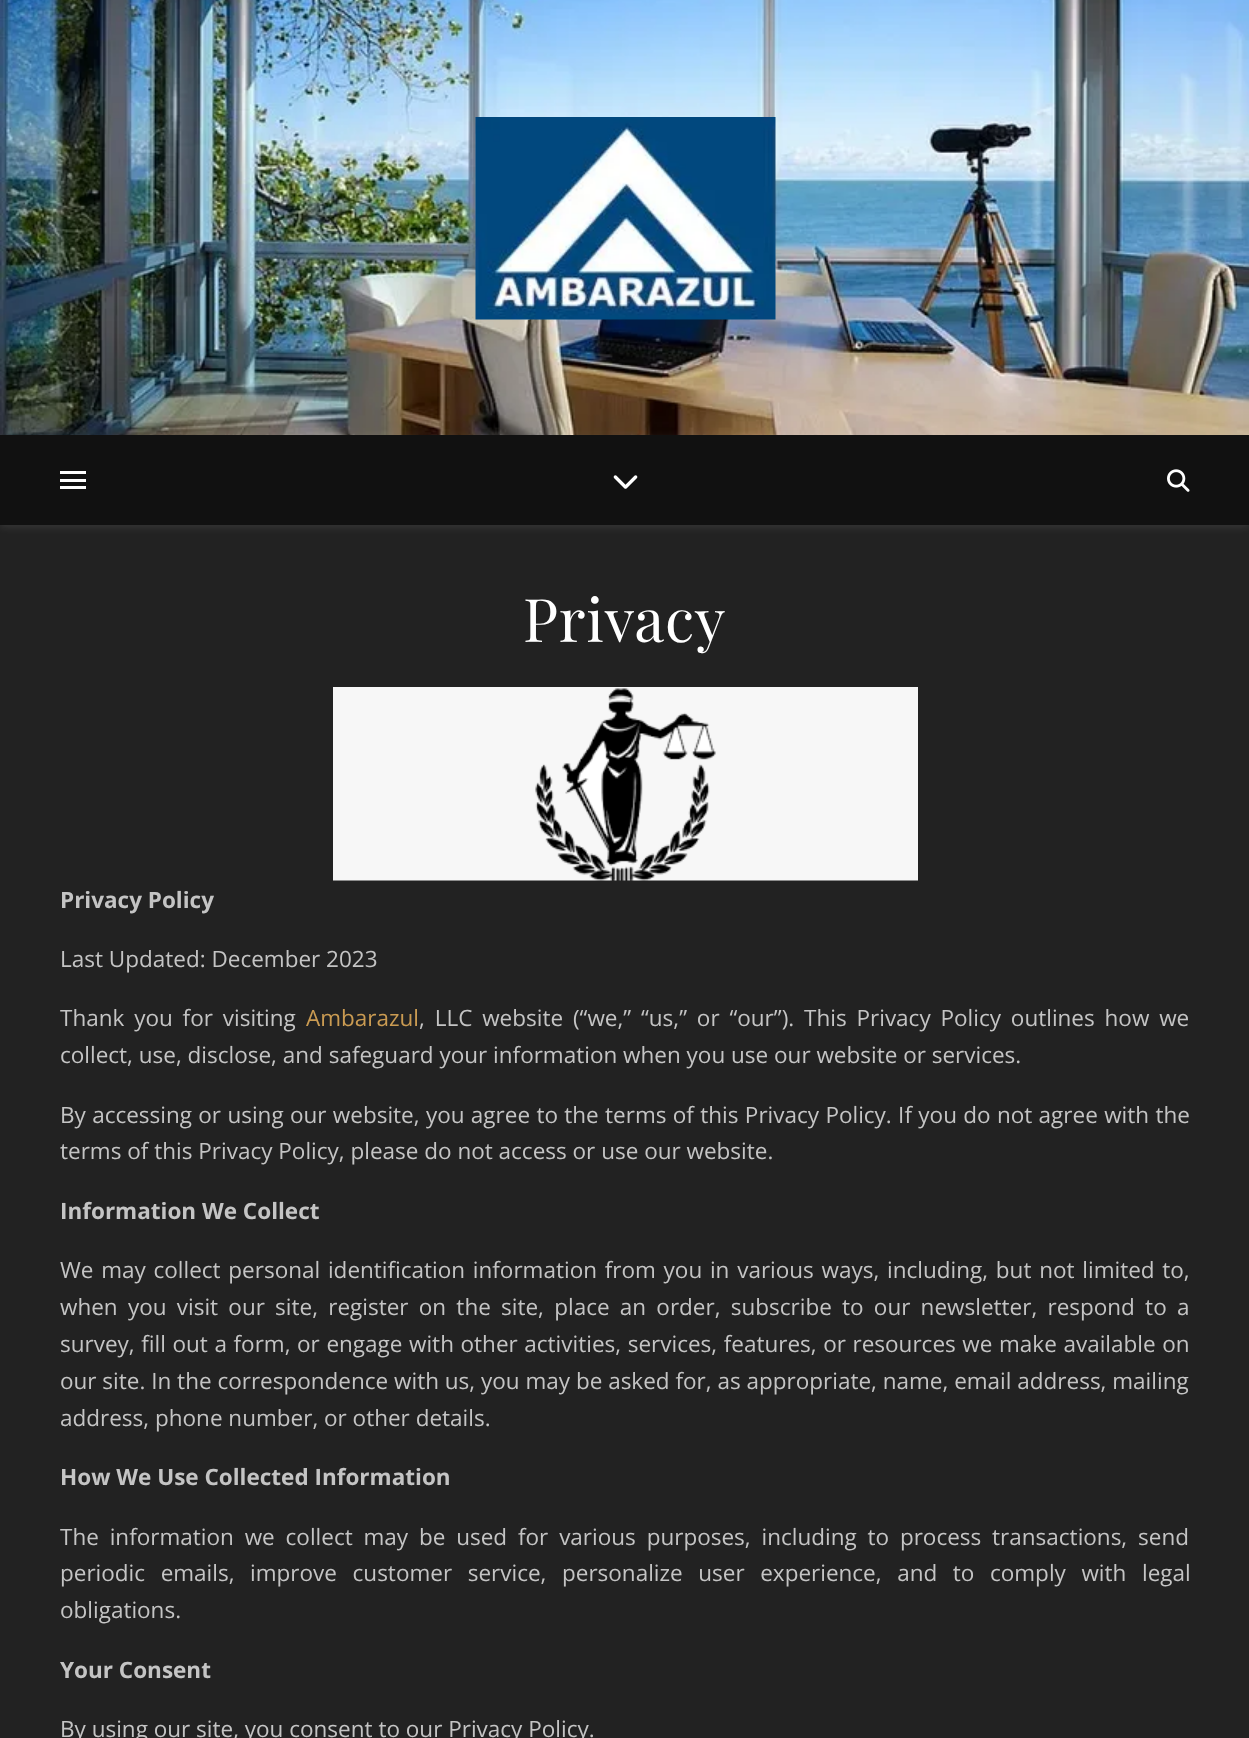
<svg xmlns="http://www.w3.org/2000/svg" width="1249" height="1738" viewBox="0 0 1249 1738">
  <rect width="100%" height="100%" fill="#222"/>
  <image x="0" y="0" width="1249" height="435" href="img/1.png"/>
  <image x="475" y="117" width="301" height="203" href="img/2.png"/>
  <path d="M0 437h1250v90H0z" fill="#ffffff1a" filter="blur(4px)"/>
  <path d="M0 435h1249v90H0z" fill="#111"/>
  <path d="M60 471h26v3H60z" fill="#fff"/>
  <path d="M60 479h26v3H60z" fill="#fff"/>
  <path d="M60 486h26v3H60z" fill="#fff"/>
  <image x="613" y="475" width="25" height="14" href="img/3.png"/>
  <image x="1167" y="469" width="23" height="23" href="img/4.png"/>
  <image x="333" y="687" width="585" height="194" href="img/5.png"/>
  <text x="523" y="642" font-family="Playfair Display" font-size="60" letter-spacing="0.75" fill="#fff">Privacy</text>
  <text x="60" y="908" font-family="Open Sans" font-size="22.5" font-weight="bold" fill="#c4c4c4">Privacy Policy</text>
  <g font-family="Open Sans" font-size="22.5" fill="#c4c4c4">
    <text x="60" y="967">Last Updated: December 2023</text>
    <text x="60" y="1026" word-spacing="4">Thank you for visiting</text>
  </g>
  <text x="306" y="1026" font-family="Open Sans" font-size="22.5" fill="#ca9b52">Ambarazul</text>
  <g font-family="Open Sans" font-size="22.5" fill="#c4c4c4">
    <text x="419" y="1026" word-spacing="4">, LLC website (“we,” “us,” or “our”). This Privacy Policy outlines how we</text>
    <text x="60" y="1063">collect, use, disclose, and safeguard your information when you use our website or services.</text>
    <text x="60" y="1123" word-spacing="0.5">By accessing or using our website, you agree to the terms of this Privacy Policy. If you do not agree with the</text>
    <text x="60" y="1159">terms of this Privacy Policy, please do not access or use our website.</text>
  </g>
  <text x="60" y="1219" font-family="Open Sans" font-size="22.5" font-weight="bold" fill="#c4c4c4">Information We Collect</text>
  <g font-family="Open Sans" font-size="22.5" fill="#c4c4c4">
    <text x="60" y="1278" word-spacing="1.9">We may collect personal identification information from you in various ways, including, but not limited to,</text>
    <text x="60" y="1315" word-spacing="4.4">when you visit our site, register on the site, place an order, subscribe to our newsletter, respond to a</text>
    <text x="60" y="1352" word-spacing="0.75">survey, fill out a form, or engage with other activities, services, features, or resources we make available on</text>
    <text x="60" y="1389">our site. In the correspondence with us, you may be asked for, as appropriate, name, email address, mailing</text>
    <text x="60" y="1426">address, phone number, or other details.</text>
  </g>
  <text x="60" y="1485" font-family="Open Sans" font-size="22.5" font-weight="bold" fill="#c4c4c4">How We Use Collected Information</text>
  <g font-family="Open Sans" font-size="22.5" fill="#c4c4c4">
    <text x="60" y="1545" word-spacing="5">The information we collect may be used for various purposes, including to process transactions, send</text>
    <text x="60" y="1581" word-spacing="9.75">periodic emails, improve customer service, personalize user experience, and to comply with legal</text>
    <text x="60" y="1618">obligations.</text>
  </g>
  <text x="60" y="1678" font-family="Open Sans" font-size="22.5" font-weight="bold" fill="#c4c4c4">Your Consent</text>
  <text x="60" y="1737" font-family="Open Sans" font-size="22.5" fill="#c4c4c4">By using our site, you consent to our Privacy Policy.</text>
</svg>
